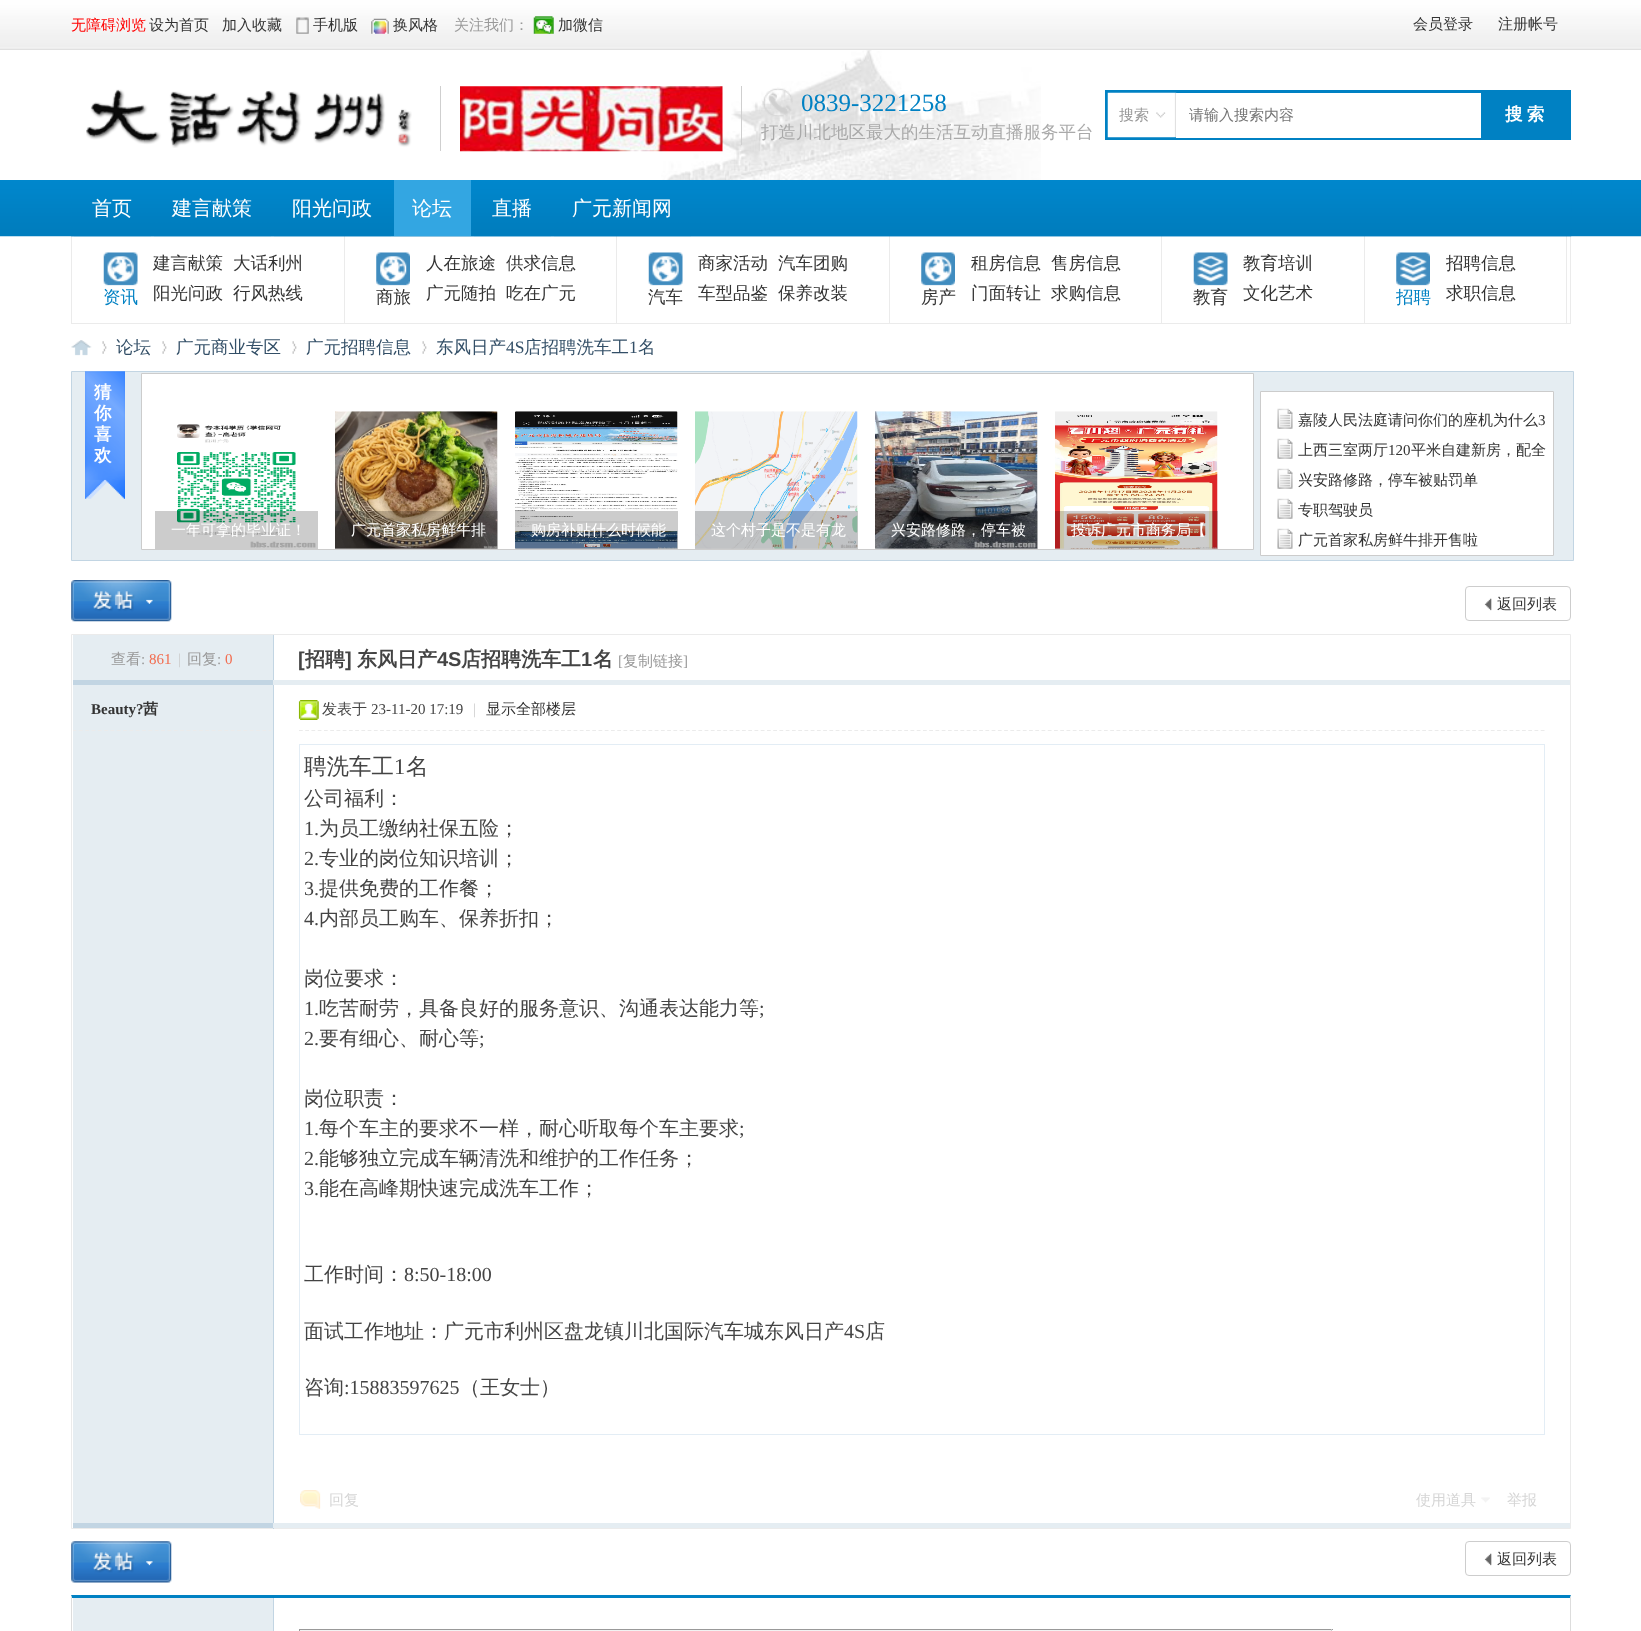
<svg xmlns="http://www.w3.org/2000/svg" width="1641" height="1631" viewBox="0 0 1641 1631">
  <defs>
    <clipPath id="clip1"><path d="M73 685h198v791H73z"/></clipPath>
  </defs>
  <rect width="100%" height="100%" fill="#fff"/>
  <image x="0" y="0" width="1641" height="50" href="img/1.png"/>
  <image x="296" y="17" width="13" height="17" href="img/2.png"/>
  <image x="371" y="18" width="18" height="16" href="img/3.png"/>
  <image x="533" y="16" width="21" height="18" href="img/4.png"/>
  <image x="648" y="50" width="393" height="130" href="img/5.png"/>
  <image x="86" y="89" width="326" height="59" href="img/6.png"/>
  <path d="M440 86h1v65H440z" fill="#cfcfcf"/>
  <image x="460" y="86" width="263" height="66" href="img/7.png"/>
  <path d="M741 86h1v59H741z" fill="#cfcfcf"/>
  <image x="762" y="87" width="31" height="30" href="img/8.png"/>
  <path d="M1106.5 91.5h463v47H1106.5z" fill="none" stroke="#0081c3" stroke-width="3"/>
  <image x="1107" y="92" width="70" height="46" href="img/9.png"/>
  <path d="M1176 93h305v45H1176z" fill="#fff"/>
  <path d="M1481 93h87v44H1481z" fill="#0081c3"/>
  <path d="M1570 236h1v88H1570z" fill="#ebebeb"/>
  <path d="M71 323h1500v1H71z" fill="#ebebeb"/>
  <path d="M71 236h1v88H71z" fill="#ebebeb"/>
  <path d="M344 236h1v87H344z" fill="#ebebeb"/>
  <path d="M616 236h1v87H616z" fill="#ebebeb"/>
  <path d="M889 236h1v87H889z" fill="#ebebeb"/>
  <path d="M1161 236h1v87H1161z" fill="#ebebeb"/>
  <path d="M1364 236h1v87H1364z" fill="#ebebeb"/>
  <path d="M1566 236h1v87H1566z" fill="#ebebeb"/>
  <image x="0" y="180" width="1641" height="57" href="img/10.png"/>
  <image x="71" y="180" width="1501" height="57" href="img/11.png"/>
  <image x="74" y="180" width="77" height="57" href="img/12.png"/>
  <image x="154" y="180" width="117" height="57" href="img/13.png"/>
  <image x="274" y="180" width="117" height="57" href="img/14.png"/>
  <path d="M394 180h77v56H394z" fill="#33a6e2"/>
  <image x="474" y="180" width="77" height="57" href="img/15.png"/>
  <image x="554" y="180" width="137" height="57" href="img/16.png"/>
  <image x="103" y="252" width="35" height="34" href="img/17.png"/>
  <image x="376" y="252" width="34" height="34" href="img/18.png"/>
  <image x="648" y="252" width="35" height="34" href="img/17.png"/>
  <image x="921" y="252" width="34" height="34" href="img/18.png"/>
  <image x="1193" y="252" width="35" height="34" href="img/19.png"/>
  <image x="1396" y="252" width="34" height="34" href="img/20.png"/>
  <image x="71" y="340" width="21" height="16" href="img/21.png"/>
  <image x="102" y="341" width="5" height="13" href="img/22.png"/>
  <image x="162" y="341" width="5" height="13" href="img/22.png"/>
  <image x="292" y="341" width="5" height="13" href="img/23.png"/>
  <image x="422" y="341" width="5" height="13" href="img/23.png"/>
  <path d="M71.5 371.5h1502v189H71.5z" fill="#e5edf2" stroke="#c2d5e3"/>
  <image x="85" y="371" width="40" height="128" href="img/24.png"/>
  <path d="M141.5 373.5h1112v176H141.5z" fill="#fff" stroke="#ccc"/>
  <image x="177" y="424" width="139" height="124" href="img/25.png"/>
  <path d="M155 511h163v38H155z" fill="#00000033"/>
  <image x="335" y="411" width="163" height="138" href="img/26.png"/>
  <path d="M335 511h163v38H335z" fill="#00000033"/>
  <image x="515" y="411" width="163" height="138" href="img/27.png"/>
  <path d="M515 511h163v38H515z" fill="#00000033"/>
  <image x="695" y="411" width="163" height="138" href="img/28.png"/>
  <path d="M695 511h163v38H695z" fill="#00000033"/>
  <image x="875" y="411" width="163" height="138" href="img/29.png"/>
  <path d="M875 511h163v38H875z" fill="#00000033"/>
  <image x="1055" y="411" width="163" height="138" href="img/30.png"/>
  <path d="M1055 511h163v38H1055z" fill="#00000033"/>
  <path d="M1260.5 391.5h293v164H1260.5z" fill="#fff" stroke="#ccc"/>
  <image x="1277" y="408" width="16" height="21" href="img/31.png"/>
  <image x="1277" y="438" width="16" height="21" href="img/31.png"/>
  <image x="1277" y="468" width="16" height="21" href="img/31.png"/>
  <image x="1277" y="498" width="16" height="21" href="img/31.png"/>
  <image x="1277" y="528" width="16" height="21" href="img/31.png"/>
  <image x="71" y="580" width="101" height="42" href="img/32.png"/>
  <image x="1484" y="598" width="8" height="13" href="img/33.png"/>
  <rect x="1465.5" y="586.5" width="105" height="34" rx="3.5" fill="none" stroke="#cdcdcd"/>
  <path d="M71.5 634.5h1499v894H71.5z" fill="none" stroke="#ebebeb"/>
  <path d="M273 635h1v46H273z" fill="#c2d5e3"/>
  <path d="M73 635h200v45H73z" fill="#e5edf2"/>
  <path d="M73 680h200v5H73z" fill="#c2d5e3"/>
  <path d="M273 680h1297v5H273z" fill="#e5edf2"/>
  <path d="M273 685h1v844H273z" fill="#c2d5e3"/>
  <path d="M73 1523h200v5H73z" fill="#c2d5e3"/>
  <path d="M273 1523h1297v5H273z" fill="#e5edf2"/>
  <path d="M73 685h200v838H73z" fill="#e5edf2"/>
  <g clip-path="url(#clip1)">
    <path d="M72.5 730.5H272.5" fill="none" stroke="#ebebeb" stroke-width="1.2" stroke-dasharray="3.75 2.58"/>
  </g>
  <path d="M299 730.5H1545" fill="none" stroke="#ebebeb" stroke-width="1.2" stroke-dasharray="3.75 2.49"/>
  <image x="298" y="700" width="21" height="20" href="img/34.png"/>
  <path d="M299 744h1246v1H299z" fill="#e3edf5"/>
  <path d="M1544 744h1v691H1544z" fill="#e3edf5"/>
  <path d="M299 1434h1246v1H299z" fill="#e3edf5"/>
  <path d="M299 744h1v691H299z" fill="#e3edf5"/>
  <image x="300" y="1490" width="21" height="19" href="img/35.png"/>
  <image x="1481" y="1497" width="9" height="6" href="img/36.png"/>
  <image x="71" y="1541" width="101" height="42" href="img/37.png"/>
  <image x="1484" y="1553" width="8" height="13" href="img/33.png"/>
  <rect x="1465.5" y="1541.5" width="105" height="34" rx="3.5" fill="none" stroke="#cdcdcd"/>
  <path d="M71 1595H1571L1570 1598H72Z" fill="#0081c3"/>
  <path d="M1571 1595V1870L1570 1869V1598Z" fill="#ddd"/>
  <path d="M71 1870V1595L72 1598V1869Z" fill="#ddd"/>
  <path d="M273 1598h1v33H273z" fill="#c2d5e3"/>
  <path d="M73 1598h200v33H73z" fill="#e5edf2"/>
  <path d="M299 1629h1034v1H299z" fill="#999"/>
  <path d="M1331 1629h1v2H1331z" fill="#ccc"/>
  <path d="M299 1629h1v2H299z" fill="#999"/>
  <path d="M300 1630h1031v1H300z" fill="#f2f2f2"/>
  <text x="71" y="30" font-family="WenQuanYi Zen Hei" font-size="15" font-weight="500" fill="#f00">无障碍浏览</text>
  <g font-family="WenQuanYi Zen Hei" font-size="15" font-weight="500" fill="#333">
    <text x="149" y="30">设为首页</text>
    <text x="222" y="30">加入收藏</text>
    <text x="313" y="30">手机版</text>
    <text x="393" y="30">换风格</text>
  </g>
  <text x="454" y="30" font-family="WenQuanYi Zen Hei" font-size="15" font-weight="500" fill="#999">关注我们：</text>
  <g font-family="WenQuanYi Zen Hei" font-size="15" font-weight="500" fill="#333">
    <text x="558" y="30">加微信</text>
    <text x="1413" y="29">会员登录</text>
    <text x="1498" y="29">注册帐号</text>
  </g>
  <text x="801" y="111" font-family="Liberation Serif" font-size="25" fill="#0081c3">0839-3221258</text>
  <text x="761" y="138" font-family="WenQuanYi Zen Hei" font-size="17.5" font-weight="500" fill="#aaa">打造川北地区最大的生活互动直播服务平台</text>
  <text x="1119" y="120" font-family="WenQuanYi Zen Hei" font-size="15" font-weight="500" fill="#999">搜索</text>
  <text x="1189" y="120" font-family="WenQuanYi Zen Hei" font-size="15" font-weight="500" fill="#757575">请输入搜索内容</text>
  <text x="1505" y="120" word-spacing="-1" font-family="WenQuanYi Zen Hei" font-size="17.5" font-weight="bold" fill="#fff">搜 索</text>
  <g font-family="WenQuanYi Zen Hei" font-size="20" font-weight="500" fill="#fff">
    <text x="92" y="215">首页</text>
    <text x="172" y="215">建言献策</text>
    <text x="292" y="215">阳光问政</text>
    <text x="412" y="215">论坛</text>
    <text x="492" y="215">直播</text>
    <text x="572" y="215">广元新闻网</text>
  </g>
  <text x="103" y="303" font-family="WenQuanYi Zen Hei" font-size="17.5" font-weight="500" fill="#0081c3">资讯</text>
  <g font-family="WenQuanYi Zen Hei" font-size="17.5" font-weight="500" fill="#333">
    <text x="153" y="269">建言献策</text>
    <text x="233" y="269">大话利州</text>
    <text x="153" y="299">阳光问政</text>
    <text x="233" y="299">行风热线</text>
    <text x="376" y="303">商旅</text>
    <text x="426" y="269">人在旅途</text>
    <text x="506" y="269">供求信息</text>
    <text x="426" y="299">广元随拍</text>
    <text x="506" y="299">吃在广元</text>
    <text x="648" y="303">汽车</text>
    <text x="698" y="269">商家活动</text>
    <text x="778" y="269">汽车团购</text>
    <text x="698" y="299">车型品鉴</text>
    <text x="778" y="299">保养改装</text>
    <text x="921" y="303">房产</text>
    <text x="971" y="269">租房信息</text>
    <text x="1051" y="269">售房信息</text>
    <text x="971" y="299">门面转让</text>
    <text x="1051" y="299">求购信息</text>
    <text x="1193" y="303">教育</text>
    <text x="1243" y="269">教育培训</text>
    <text x="1243" y="299">文化艺术</text>
  </g>
  <text x="1396" y="303" font-family="WenQuanYi Zen Hei" font-size="17.5" font-weight="500" fill="#0081c3">招聘</text>
  <g font-family="WenQuanYi Zen Hei" font-size="17.5" font-weight="500" fill="#333">
    <text x="1446" y="269">招聘信息</text>
    <text x="1446" y="299">求职信息</text>
  </g>
  <g font-family="WenQuanYi Zen Hei" font-size="17.5" font-weight="500" fill="#334f67">
    <text x="116" y="353">论坛</text>
    <text x="176" y="353">广元商业专区</text>
    <text x="306" y="353">广元招聘信息</text>
    <text x="436" y="353">东风日产</text>
  </g>
  <text x="506" y="353" font-family="Liberation Serif" font-size="17.5" fill="#334f67">4S</text>
  <text x="524" y="353" font-family="WenQuanYi Zen Hei" font-size="17.5" font-weight="500" fill="#334f67">店招聘洗车工</text>
  <text x="629" y="353" font-family="Liberation Serif" font-size="17.5" fill="#334f67">1</text>
  <text x="638" y="353" font-family="WenQuanYi Zen Hei" font-size="17.5" font-weight="500" fill="#334f67">名</text>
  <g font-family="WenQuanYi Zen Hei" font-size="17.5" font-weight="bold" fill="#fff">
    <text x="94" y="398">猜</text>
    <text x="94" y="419">你</text>
    <text x="94" y="440">喜</text>
    <text x="94" y="461">欢</text>
  </g>
  <g font-family="WenQuanYi Zen Hei" font-size="15" font-weight="500" fill="#fff">
    <text x="171" y="535">一年可拿的毕业证！</text>
    <text x="351" y="535">广元首家私房鲜牛排</text>
    <text x="531" y="535">购房补贴什么时候能</text>
    <text x="711" y="535">这个村子是不是有龙</text>
    <text x="891" y="535">兴安路修路，停车被</text>
    <text x="1071" y="535">投诉广元市商务局【</text>
  </g>
  <text x="1298" y="425" font-family="WenQuanYi Zen Hei" font-size="15" font-weight="500" fill="#333">嘉陵人民法庭请问你们的座机为什么</text>
  <text x="1538" y="425" font-family="Liberation Serif" font-size="15" fill="#333">3</text>
  <text x="1298" y="455" font-family="WenQuanYi Zen Hei" font-size="15" font-weight="500" fill="#333">上西三室两厅</text>
  <text x="1388" y="455" font-family="Liberation Serif" font-size="15" fill="#333">120</text>
  <g font-family="WenQuanYi Zen Hei" font-size="15" font-weight="500" fill="#333">
    <text x="1411" y="455">平米自建新房，配全</text>
    <text x="1298" y="485">兴安路修路，停车被贴罚单</text>
    <text x="1298" y="515">专职驾驶员</text>
    <text x="1298" y="545">广元首家私房鲜牛排开售啦</text>
    <text x="1497" y="609">返回列表</text>
  </g>
  <text x="111" y="664" font-family="WenQuanYi Zen Hei" font-size="15" font-weight="500" fill="#999">查看</text>
  <text x="141" y="664" font-family="Liberation Serif" font-size="15" fill="#999">:</text>
  <text x="149" y="664" font-family="Liberation Serif" font-size="15" fill="#f26c4f">861</text>
  <text x="178" y="664" font-family="Liberation Serif" font-size="15" fill="#ccc">|</text>
  <text x="187" y="664" font-family="WenQuanYi Zen Hei" font-size="15" font-weight="500" fill="#999">回复</text>
  <text x="217" y="664" font-family="Liberation Serif" font-size="15" fill="#999">:</text>
  <text x="225" y="664" font-family="Liberation Serif" font-size="15" fill="#f26c4f">0</text>
  <text x="298" y="666" font-family="Liberation Sans" font-size="20" font-weight="bold" fill="#444">[</text>
  <text x="305" y="666" font-family="WenQuanYi Zen Hei" font-size="20" font-weight="bold" fill="#444">招聘</text>
  <text x="345" y="666" font-family="Liberation Sans" font-size="20" font-weight="bold" fill="#444">]</text>
  <text x="357" y="666" font-family="WenQuanYi Zen Hei" font-size="20" font-weight="bold" fill="#444">东风日产</text>
  <text x="437" y="666" font-family="Liberation Sans" font-size="20" font-weight="bold" fill="#444">4S</text>
  <text x="461" y="666" font-family="WenQuanYi Zen Hei" font-size="20" font-weight="bold" fill="#444">店招聘洗车工</text>
  <text x="581" y="666" font-family="Liberation Sans" font-size="20" font-weight="bold" fill="#444">1</text>
  <text x="593" y="666" font-family="WenQuanYi Zen Hei" font-size="20" font-weight="bold" fill="#444">名</text>
  <text x="618" y="666" font-family="Liberation Serif" font-size="15" fill="#999">[</text>
  <text x="623" y="666" font-family="WenQuanYi Zen Hei" font-size="15" font-weight="500" fill="#999">复制链接</text>
  <text x="683" y="666" font-family="Liberation Serif" font-size="15" fill="#999">]</text>
  <text x="91" y="714" font-family="Liberation Serif" font-size="15" font-weight="bold" fill="#333">Beauty?</text>
  <text x="143" y="714" font-family="WenQuanYi Zen Hei" font-size="15" font-weight="bold" fill="#333">茜</text>
  <text x="322" y="714" font-family="WenQuanYi Zen Hei" font-size="15" font-weight="500" fill="#444">发表于</text>
  <text x="371" y="714" font-family="Liberation Serif" font-size="15" fill="#444">23-11-20 17:19</text>
  <text x="473" y="714" font-family="Liberation Serif" font-size="15" fill="#ccc">|</text>
  <text x="486" y="714" font-family="WenQuanYi Zen Hei" font-size="15" font-weight="500" fill="#333">显示全部楼层</text>
  <text x="304" y="774" font-family="WenQuanYi Zen Hei" font-size="22.5" font-weight="500" fill="#444">聘洗车工</text>
  <text x="394" y="774" font-family="Liberation Serif" font-size="22.5" fill="#444">1</text>
  <text x="406" y="774" font-family="WenQuanYi Zen Hei" font-size="22.5" font-weight="500" fill="#444">名</text>
  <text x="304" y="805" font-family="WenQuanYi Zen Hei" font-size="20" font-weight="500" fill="#444">公司福利：</text>
  <text x="304" y="835" font-family="Liberation Serif" font-size="20" fill="#444">1.</text>
  <text x="319" y="835" font-family="WenQuanYi Zen Hei" font-size="20" font-weight="500" fill="#444">为员工缴纳社保五险；</text>
  <text x="304" y="865" font-family="Liberation Serif" font-size="20" fill="#444">2.</text>
  <text x="319" y="865" font-family="WenQuanYi Zen Hei" font-size="20" font-weight="500" fill="#444">专业的岗位知识培训；</text>
  <text x="304" y="895" font-family="Liberation Serif" font-size="20" fill="#444">3.</text>
  <text x="319" y="895" font-family="WenQuanYi Zen Hei" font-size="20" font-weight="500" fill="#444">提供免费的工作餐；</text>
  <text x="304" y="925" font-family="Liberation Serif" font-size="20" fill="#444">4.</text>
  <g font-family="WenQuanYi Zen Hei" font-size="20" font-weight="500" fill="#444">
    <text x="319" y="925">内部员工购车、保养折扣；</text>
    <text x="304" y="985">岗位要求：</text>
  </g>
  <text x="304" y="1015" font-family="Liberation Serif" font-size="20" fill="#444">1.</text>
  <text x="319" y="1015" font-family="WenQuanYi Zen Hei" font-size="20" font-weight="500" fill="#444">吃苦耐劳，具备良好的服务意识、沟通表达能力等</text>
  <g font-family="Liberation Serif" font-size="20" fill="#444">
    <text x="759" y="1015">;</text>
    <text x="304" y="1045">2.</text>
  </g>
  <text x="319" y="1045" font-family="WenQuanYi Zen Hei" font-size="20" font-weight="500" fill="#444">要有细心、耐心等</text>
  <text x="479" y="1045" font-family="Liberation Serif" font-size="20" fill="#444">;</text>
  <text x="304" y="1105" font-family="WenQuanYi Zen Hei" font-size="20" font-weight="500" fill="#444">岗位职责：</text>
  <text x="304" y="1135" font-family="Liberation Serif" font-size="20" fill="#444">1.</text>
  <text x="319" y="1135" font-family="WenQuanYi Zen Hei" font-size="20" font-weight="500" fill="#444">每个车主的要求不一样，耐心听取每个车主要求</text>
  <g font-family="Liberation Serif" font-size="20" fill="#444">
    <text x="739" y="1135">;</text>
    <text x="304" y="1165">2.</text>
  </g>
  <text x="319" y="1165" font-family="WenQuanYi Zen Hei" font-size="20" font-weight="500" fill="#444">能够独立完成车辆清洗和维护的工作任务；</text>
  <text x="304" y="1195" font-family="Liberation Serif" font-size="20" fill="#444">3.</text>
  <g font-family="WenQuanYi Zen Hei" font-size="20" font-weight="500" fill="#444">
    <text x="319" y="1195">能在高峰期快速完成洗车工作；</text>
    <text x="304" y="1281">工作时间：</text>
  </g>
  <text x="404" y="1281" font-family="Liberation Serif" font-size="20" fill="#444">8:50-18:00</text>
  <text x="304" y="1338" font-family="WenQuanYi Zen Hei" font-size="20" font-weight="500" fill="#444">面试工作地址：广元市利州区盘龙镇川北国际汽车城东风日产</text>
  <text x="844" y="1338" font-family="Liberation Serif" font-size="20" fill="#444">4S</text>
  <g font-family="WenQuanYi Zen Hei" font-size="20" font-weight="500" fill="#444">
    <text x="865" y="1338">店</text>
    <text x="304" y="1394">咨询</text>
  </g>
  <text x="344" y="1394" font-family="Liberation Serif" font-size="20" fill="#444">:15883597625</text>
  <text x="460" y="1394" font-family="WenQuanYi Zen Hei" font-size="20" font-weight="500" fill="#444">（王女士）</text>
  <g font-family="WenQuanYi Zen Hei" font-size="15" font-weight="500" fill="#d6d6d6">
    <text x="329" y="1505">回复</text>
    <text x="1416" y="1505">使用道具</text>
    <text x="1507" y="1505">举报</text>
  </g>
  <text x="1497" y="1564" font-family="WenQuanYi Zen Hei" font-size="15" font-weight="500" fill="#333">返回列表</text>
</svg>
